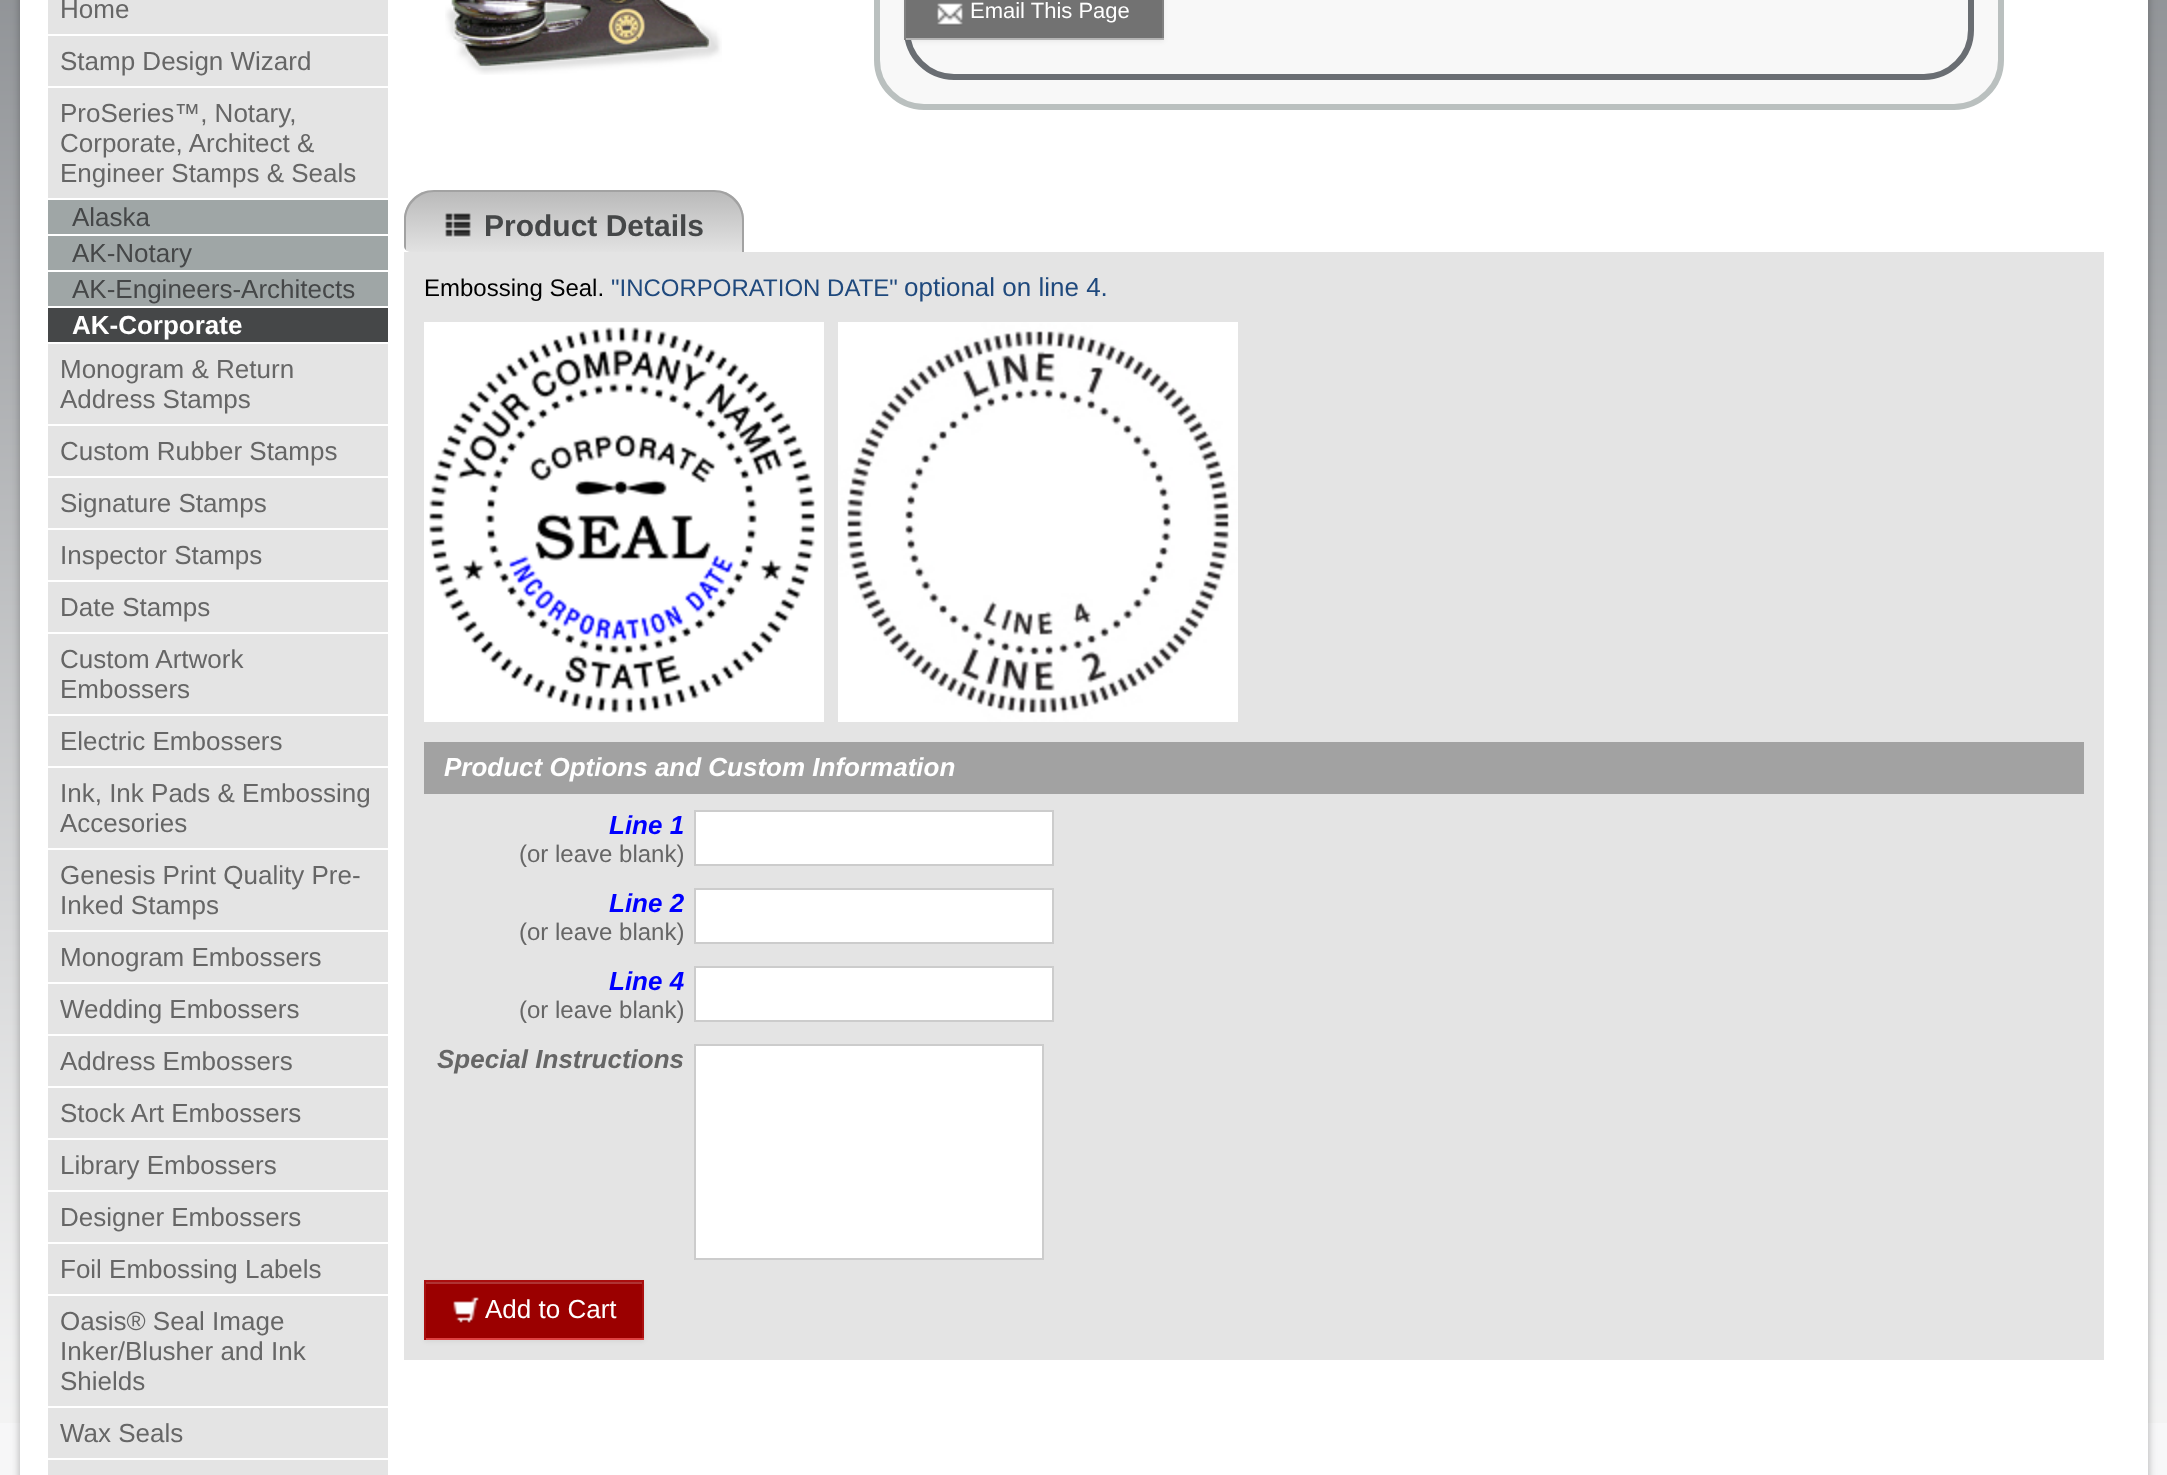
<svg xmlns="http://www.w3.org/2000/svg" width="2167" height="1475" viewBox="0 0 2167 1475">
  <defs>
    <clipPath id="clip1"><path d="M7 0H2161V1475H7ZM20-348H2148V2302H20Z" clip-rule="evenodd"/></clipPath>
    <clipPath id="clip2"><rect x="404" y="190" width="1700" height="62" rx="6"/></clipPath>
    <clipPath id="clip3"><path d="M434 190H714C730.5 190 744 203.5 744 220V252H404V220C404 203.5 417.5 190 434 190Z"/></clipPath>
    <linearGradient id="g1" gradientUnits="userSpaceOnUse" x1="574" y1="192" x2="574" y2="252"><stop offset="0" stop-color="#bababa"/><stop offset="1" stop-color="#e2e2e2"/></linearGradient>
  </defs>
  <rect width="100%" height="100%" fill="#f7f7f8"/>
  <image x="0" y="0" width="2167" height="1423" href="img/1.png"/>
  <path d="M20 0h2128v1475H20z" fill="#fff"/>
  <g clip-path="url(#clip1)">
    <path d="M20 -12h2128v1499H20z" fill="#0000004d" filter="blur(4px)"/>
  </g>
  <path d="M48 0h340v1475H48z" fill="#e4e4e4"/>
  <path d="M48 34h340v2H48z" fill="#fff"/>
  <path d="M48 86h340v2H48z" fill="#fff"/>
  <path d="M48 198h340v2H48z" fill="#fff"/>
  <path d="M48 200h340v34H48z" fill="#9fa6a6"/>
  <path d="M48 234h340v2H48z" fill="#fff"/>
  <path d="M48 236h340v34H48z" fill="#9fa6a6"/>
  <path d="M48 270h340v2H48z" fill="#fff"/>
  <path d="M48 272h340v34H48z" fill="#9fa6a6"/>
  <path d="M48 306h340v2H48z" fill="#fff"/>
  <path d="M48 308h340v34H48z" fill="#454748"/>
  <path d="M48 342h340v2H48z" fill="#fff"/>
  <path d="M48 424h340v2H48z" fill="#fff"/>
  <path d="M48 476h340v2H48z" fill="#fff"/>
  <path d="M48 528h340v2H48z" fill="#fff"/>
  <path d="M48 580h340v2H48z" fill="#fff"/>
  <path d="M48 632h340v2H48z" fill="#fff"/>
  <path d="M48 714h340v2H48z" fill="#fff"/>
  <path d="M48 766h340v2H48z" fill="#fff"/>
  <path d="M48 848h340v2H48z" fill="#fff"/>
  <path d="M48 930h340v2H48z" fill="#fff"/>
  <path d="M48 982h340v2H48z" fill="#fff"/>
  <path d="M48 1034h340v2H48z" fill="#fff"/>
  <path d="M48 1086h340v2H48z" fill="#fff"/>
  <path d="M48 1138h340v2H48z" fill="#fff"/>
  <path d="M48 1190h340v2H48z" fill="#fff"/>
  <path d="M48 1242h340v2H48z" fill="#fff"/>
  <path d="M48 1294h340v2H48z" fill="#fff"/>
  <path d="M48 1406h340v2H48z" fill="#fff"/>
  <path d="M48 1458h340v2H48z" fill="#fff"/>
  <image x="445" y="0" width="277" height="75" href="img/2.png"/>
  <rect x="877" y="-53" width="1124" height="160" rx="47" fill="#f8f8f8" stroke="#bac0bf" stroke-width="6"/>
  <rect x="907" y="-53" width="1064" height="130" rx="47" fill="none" stroke="#6a6e73" stroke-width="6"/>
  <path d="M904 -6h260v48H904z" fill="#0000000d" filter="blur(2px)"/>
  <path d="M906 0h256v38H906z" fill="#727272"/>
  <path d="M1162 0h2v40H1162z" fill="#818181"/>
  <path d="M904 38h260v2H904z" fill="#b4b4b4"/>
  <path d="M904 0h2v40H904z" fill="#818181"/>
  <image x="937" y="3" width="26" height="23" href="img/3.png"/>
  <g clip-path="url(#clip2)">
    <g clip-path="url(#clip3)">
      <path d="M404 192H744V252H410C406.5 252 404 249.5 404 246Z" fill="url(#g1)"/>
    </g>
  </g>
  <path d="M434 190C417 190 404 203 404 220V246C404 248 405 249 406 250V220C406 205 419 192 434 192H714C729 192 742 205 742 220V252H744V220C744 203 731 190 714 190Z" fill="#a2a2a2"/>
  <image x="445" y="213" width="26" height="25" href="img/4.png"/>
  <path d="M404 252h1700v1108H404z" fill="#e4e4e4"/>
  <image x="424" y="322" width="400" height="400" href="img/5.png"/>
  <image x="838" y="322" width="400" height="400" href="img/6.png"/>
  <path d="M424 742h1660v52H424z" fill="#a2a2a2"/>
  <path d="M695 811h358v54H695z" fill="#fff" stroke="#ccc" stroke-width="2"/>
  <path d="M695 889h358v54H695z" fill="#fff" stroke="#ccc" stroke-width="2"/>
  <path d="M695 967h358v54H695z" fill="#fff" stroke="#ccc" stroke-width="2"/>
  <path d="M695 1045h348v214H695z" fill="#fff" stroke="#ccc" stroke-width="2"/>
  <path d="M424 1282h220v60H424z" fill="#0000000d" filter="blur(2px)"/>
  <path d="M426 1284h216v54H426z" fill="#9b0000"/>
  <path d="M426 1282h216v2H426z" fill="#af3333"/>
  <path d="M424 1280h220v2H424z" fill="#aa0f0f"/>
  <path d="M642 1280h2v60H642z" fill="#aa0f0f"/>
  <path d="M424 1338h220v2H424z" fill="#dd4242"/>
  <path d="M424 1280h2v60H424z" fill="#aa0f0f"/>
  <image x="453" y="1297" width="26" height="27" href="img/7.png"/>
  <g font-family="Liberation Sans" font-size="26" fill="#666">
    <text x="60" y="18">Home</text>
    <text x="60" y="70">Stamp Design Wizard</text>
    <text x="60" y="122">ProSeries™, Notary,</text>
    <text x="60" y="152">Corporate, Architect &amp;</text>
    <text x="60" y="182">Engineer Stamps &amp; Seals</text>
  </g>
  <g font-family="Liberation Sans" font-size="26" fill="#454748">
    <text x="72" y="226">Alaska</text>
    <text x="72" y="262">AK-Notary</text>
    <text x="72" y="298">AK-Engineers-Architects</text>
  </g>
  <text x="72" y="334" font-family="Liberation Sans" font-size="26" font-weight="bold" fill="#fff">AK-Corporate</text>
  <g font-family="Liberation Sans" font-size="26" fill="#666">
    <text x="60" y="378">Monogram &amp; Return</text>
    <text x="60" y="408">Address Stamps</text>
    <text x="60" y="460">Custom Rubber Stamps</text>
    <text x="60" y="512">Signature Stamps</text>
    <text x="60" y="564">Inspector Stamps</text>
    <text x="60" y="616">Date Stamps</text>
    <text x="60" y="668">Custom Artwork</text>
    <text x="60" y="698">Embossers</text>
    <text x="60" y="750">Electric Embossers</text>
    <text x="60" y="802">Ink, Ink Pads &amp; Embossing</text>
    <text x="60" y="832">Accesories</text>
    <text x="60" y="884">Genesis Print Quality Pre-</text>
    <text x="60" y="914">Inked Stamps</text>
    <text x="60" y="966">Monogram Embossers</text>
    <text x="60" y="1018">Wedding Embossers</text>
    <text x="60" y="1070">Address Embossers</text>
    <text x="60" y="1122">Stock Art Embossers</text>
    <text x="60" y="1174">Library Embossers</text>
    <text x="60" y="1226">Designer Embossers</text>
    <text x="60" y="1278">Foil Embossing Labels</text>
    <text x="60" y="1330">Oasis® Seal Image</text>
    <text x="60" y="1360">Inker/Blusher and Ink</text>
    <text x="60" y="1390">Shields</text>
    <text x="60" y="1442">Wax Seals</text>
  </g>
  <text x="970" y="18" font-family="Liberation Sans" font-size="22" fill="#fff">Email This Page</text>
  <text x="484" y="236" font-family="Liberation Sans" font-size="30" font-weight="bold" fill="#454748">Product Details</text>
  <text x="424" y="296" font-family="Liberation Sans" font-size="24" fill="#000">Embossing Seal.</text>
  <text x="611" y="296" font-family="Liberation Sans" font-size="24" fill="#1f497d">"INCORPORATION DATE"</text>
  <text x="904" y="296" font-family="Liberation Sans" font-size="26" fill="#1f497d">optional on line 4.</text>
  <text x="444" y="776" font-family="Liberation Sans" font-size="26" font-weight="bold" font-style="italic" fill="#fff">Product Options and Custom Information</text>
  <text x="609" y="834" font-family="Liberation Sans" font-size="26" font-weight="bold" font-style="italic" fill="#00f">Line 1</text>
  <text x="519" y="862" font-family="Liberation Sans" font-size="24" fill="#666">(or leave blank)</text>
  <text x="609" y="912" font-family="Liberation Sans" font-size="26" font-weight="bold" font-style="italic" fill="#00f">Line 2</text>
  <text x="519" y="940" font-family="Liberation Sans" font-size="24" fill="#666">(or leave blank)</text>
  <text x="609" y="990" font-family="Liberation Sans" font-size="26" font-weight="bold" font-style="italic" fill="#00f">Line 4</text>
  <text x="519" y="1018" font-family="Liberation Sans" font-size="24" fill="#666">(or leave blank)</text>
  <text x="437" y="1068" font-family="Liberation Sans" font-size="26" font-weight="bold" font-style="italic" fill="#666">Special Instructions</text>
  <text x="485" y="1318" font-family="Liberation Sans" font-size="26" fill="#fff">Add to Cart</text>
</svg>
